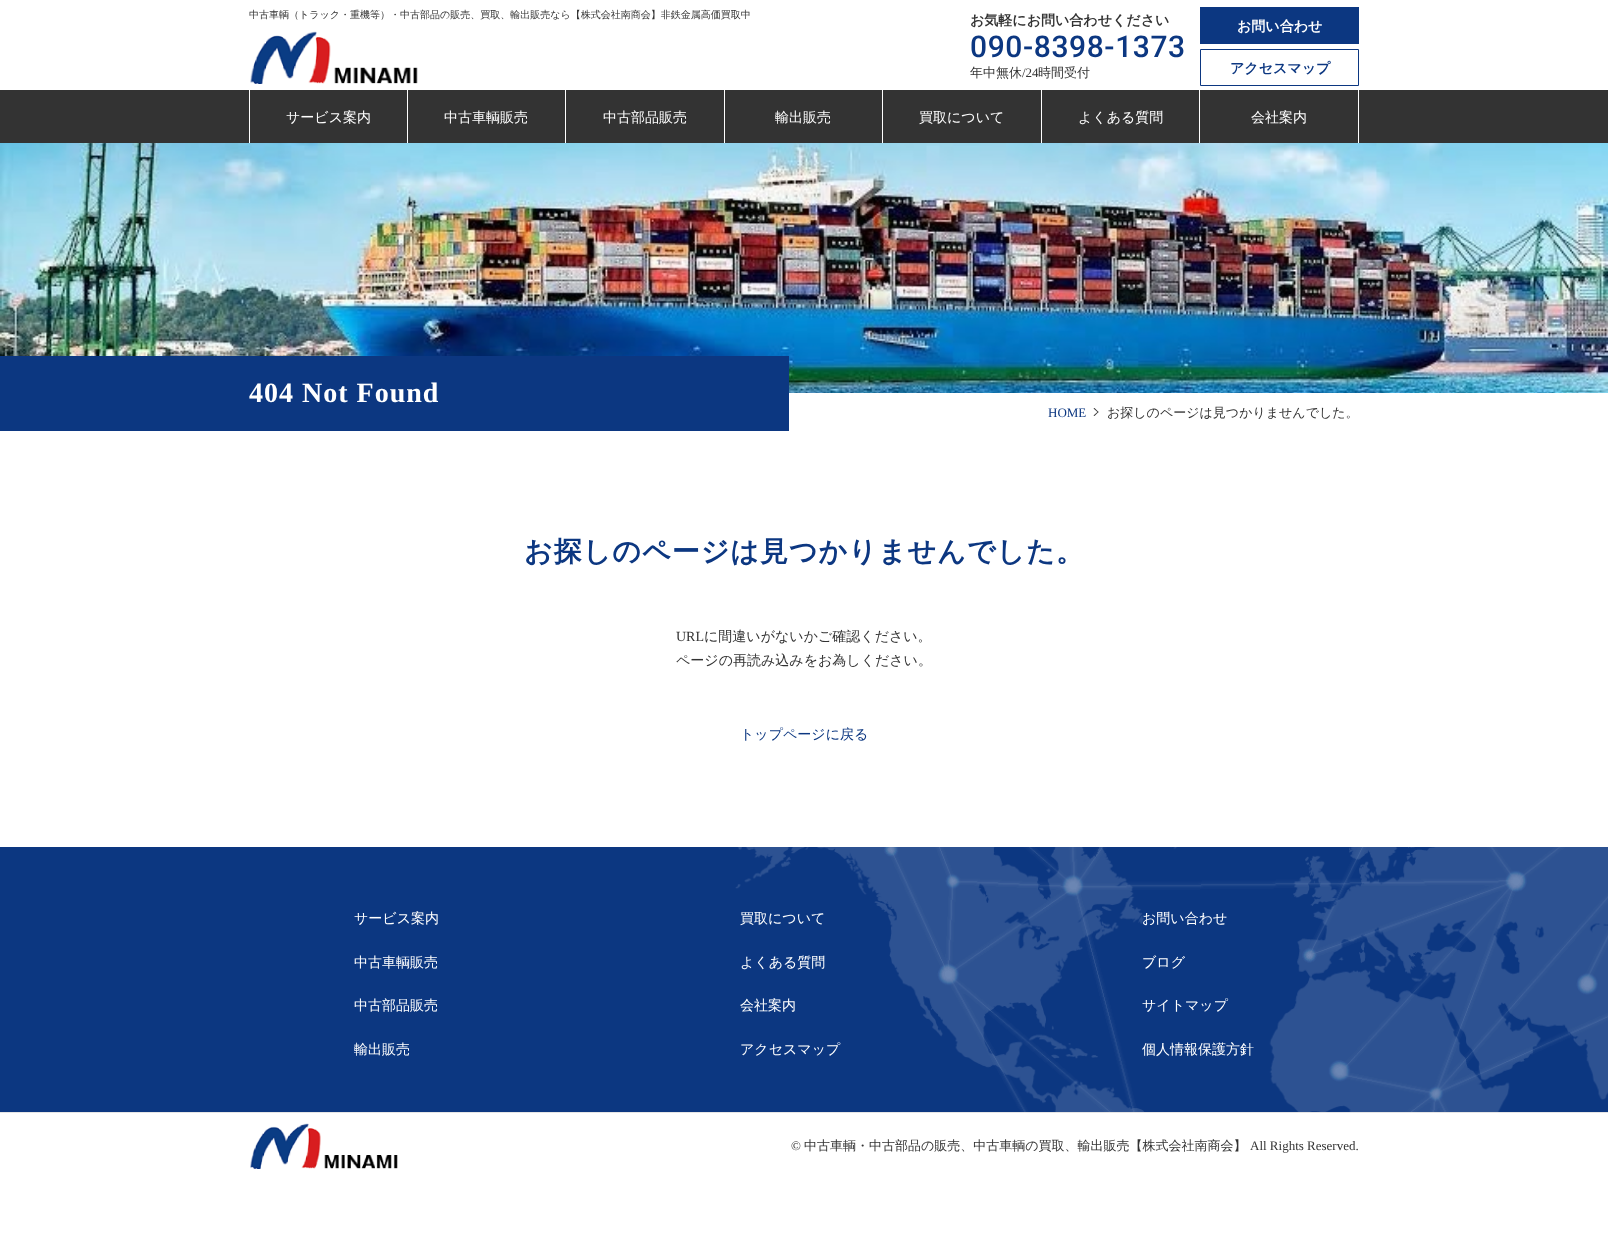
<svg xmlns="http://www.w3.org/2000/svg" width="1608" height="1259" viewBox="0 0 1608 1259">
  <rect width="100%" height="100%" fill="#fff"/>
  <image x="250" y="31" width="168" height="53" href="img/1.png"/>
  <path d="M1200 7h159v37H1200z" fill="#0c3781"/>
  <path d="M1200.5 49.5h158v36H1200.5z" fill="none" stroke="#0c3781"/>
  <path d="M0 90h1608v53H0z" fill="#333"/>
  <path d="M407 90h1v53H407z" fill="#fff"/>
  <path d="M249 90h1v53H249z" fill="#fff"/>
  <path d="M565 90h1v53H565z" fill="#fff"/>
  <path d="M724 90h1v53H724z" fill="#fff"/>
  <path d="M882 90h1v53H882z" fill="#fff"/>
  <path d="M1041 90h1v53H1041z" fill="#fff"/>
  <path d="M1199 90h1v53H1199z" fill="#fff"/>
  <path d="M1358 90h1v53H1358z" fill="#fff"/>
  <image x="0" y="143" width="1608" height="250" href="img/2.png"/>
  <path d="M0 356h789v75H0z" fill="#0c3781"/>
  <path d="M1094.5 408L1098.5 412L1098 412.5L1093.5 408.5Z" fill="#333"/>
  <path d="M1098 411.5L1098.5 412L1094.5 416L1093.5 415.5Z" fill="#333"/>
  <image x="0" y="847" width="1608" height="265" href="img/3.png"/>
  <path d="M0 1112h1608v1H0z" fill="#e5e5e5"/>
  <image x="250" y="1123" width="148" height="46" href="img/4.png"/>
  <text x="249" y="18" font-family="WenQuanYi Zen Hei" font-size="10" font-weight="500" fill="#333">中古車輌（トラック・重機等）・中古部品の販売、買取、輸出販売なら【株式会社南商会】非鉄金属高価買取中</text>
  <text x="970" y="25" font-family="WenQuanYi Zen Hei" font-size="14" font-weight="bold" fill="#333">お気軽にお問い合わせください</text>
  <text x="970" y="57" font-family="Roboto" font-size="30" font-weight="500" letter-spacing="0.6" fill="#0c3781">090-8398-1373</text>
  <text x="970" y="77" font-family="WenQuanYi Zen Hei" font-size="13" font-weight="500" fill="#333">年中無休</text>
  <text x="1022" y="77" font-family="Liberation Serif" font-size="13" fill="#333">/24</text>
  <text x="1038" y="77" font-family="WenQuanYi Zen Hei" font-size="13" font-weight="500" fill="#333">時間受付</text>
  <text x="1237" y="31" font-family="WenQuanYi Zen Hei" font-size="14" font-weight="bold" fill="#fff">お問い合わせ</text>
  <text x="1230" y="73" font-family="WenQuanYi Zen Hei" font-size="14" font-weight="bold" fill="#0c3781">アクセスマップ</text>
  <g font-family="WenQuanYi Zen Hei" font-size="14" font-weight="500" fill="#fff">
    <text x="286" y="122">サービス案内</text>
    <text x="444" y="122">中古車輌販売</text>
    <text x="603" y="122">中古部品販売</text>
    <text x="775" y="122">輸出販売</text>
    <text x="919" y="122">買取について</text>
    <text x="1078" y="122">よくある質問</text>
    <text x="1251" y="122">会社案内</text>
  </g>
  <text x="249" y="402" font-family="Liberation Serif" font-size="28" font-weight="bold" letter-spacing="1" fill="#fff">404 Not Found</text>
  <text x="524" y="561" font-family="WenQuanYi Zen Hei" font-size="28" font-weight="bold" letter-spacing="1" fill="#0c3781">お探しのページは見つかりませんでした。</text>
  <text x="676" y="641" font-family="Liberation Serif" font-size="14" fill="#333">URL</text>
  <g font-family="WenQuanYi Zen Hei" font-size="14" font-weight="500" fill="#333">
    <text x="704" y="641">に間違いがないかご確認ください。</text>
    <text x="676" y="665">ページの再読み込みをお為しください。</text>
  </g>
  <text x="740" y="739" font-family="WenQuanYi Zen Hei" font-size="14" font-weight="500" fill="#0c3781">トップページに戻る</text>
  <text x="1048" y="417" font-family="Liberation Serif" font-size="13" fill="#0c3781">HOME</text>
  <text x="1107" y="417" font-family="WenQuanYi Zen Hei" font-size="13" font-weight="500" fill="#333">お探しのページは見つかりませんでした。</text>
  <g font-family="WenQuanYi Zen Hei" font-size="14" font-weight="500" fill="#fff">
    <text x="354" y="923">サービス案内</text>
    <text x="354" y="967">中古車輌販売</text>
    <text x="354" y="1010">中古部品販売</text>
    <text x="354" y="1054">輸出販売</text>
    <text x="740" y="923">買取について</text>
    <text x="740" y="967">よくある質問</text>
    <text x="740" y="1010">会社案内</text>
    <text x="740" y="1054">アクセスマップ</text>
    <text x="1142" y="923">お問い合わせ</text>
    <text x="1142" y="967">ブログ</text>
    <text x="1142" y="1010">サイトマップ</text>
    <text x="1142" y="1054">個人情報保護方針</text>
  </g>
  <text x="791" y="1150" font-family="Liberation Serif" font-size="13" fill="#333">©</text>
  <text x="804" y="1150" font-family="WenQuanYi Zen Hei" font-size="13" font-weight="500" fill="#333">中古車輌・中古部品の販売、中古車輌の買取、輸出販売【株式会社南商会】</text>
  <text x="1250" y="1150" font-family="Liberation Serif" font-size="13" fill="#333">All Rights Reserved.</text>
</svg>
